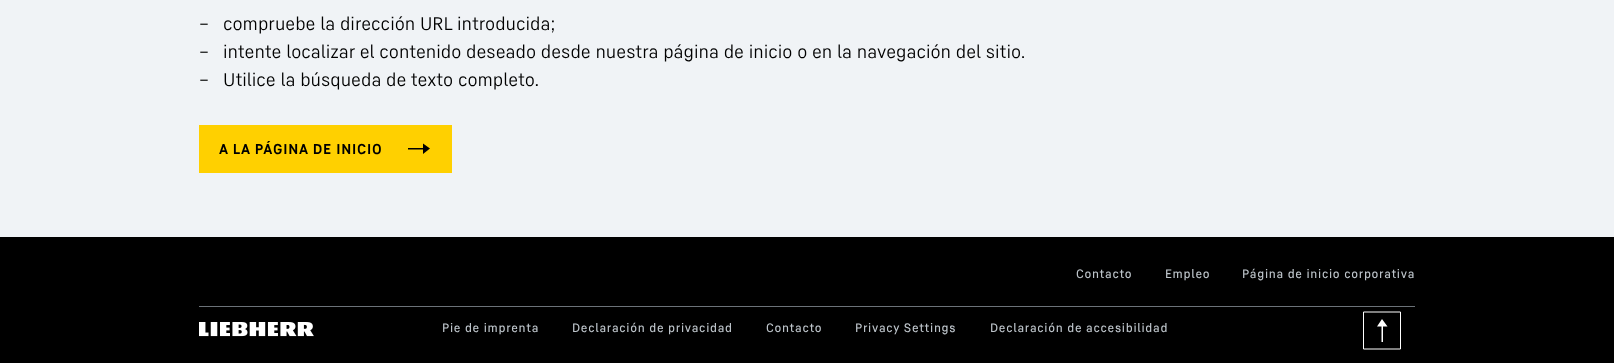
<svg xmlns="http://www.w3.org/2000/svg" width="1614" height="363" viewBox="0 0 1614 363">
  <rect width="100%" height="100%" fill="#000"/>
  <path d="M0 0h1614v237H0z" fill="#f0f3f6"/>
  <path d="M199 125h253v48H199z" fill="#ffd000"/>
  <path d="M430 148.5L423 143.5V148H408V149.5H423V154Z" fill="#000"/>
  <path d="M199 306h1216v1H199z" fill="#6b7278"/>
  <image x="199" y="322" width="115" height="15" href="img/1.png"/>
  <path d="M1363.5 349V312H1400.5V349Z" fill="none" stroke="#fff"/>
  <path d="M1382 319L1377 326.5H1381.5V342H1383V326.5H1387.5Z" fill="#fff"/>
  <g font-family="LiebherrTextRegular" font-size="18" fill="#000">
    <text x="199" y="30">–</text>
    <text x="223" y="30">compruebe la dirección URL introducida;</text>
    <text x="199" y="58">–</text>
    <text x="223" y="58">intente localizar el contenido deseado desde nuestra página de inicio o en la navegación del sitio.</text>
    <text x="199" y="86">–</text>
    <text x="223" y="86">Utilice la búsqueda de texto completo.</text>
  </g>
  <text x="219" y="154" font-family="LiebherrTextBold" font-size="14" font-weight="bold" letter-spacing="0.75" fill="#000">A LA PÁGINA DE INICIO</text>
  <g font-family="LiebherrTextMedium" font-size="12" font-weight="500" letter-spacing="0.7" fill="#bdc4ca">
    <text x="1076" y="278">Contacto</text>
    <text x="1165" y="278">Empleo</text>
    <text x="1242" y="278">Página de inicio corporativa</text>
    <text x="442" y="332">Pie de imprenta</text>
    <text x="572" y="332">Declaración de privacidad</text>
    <text x="766" y="332">Contacto</text>
    <text x="855" y="332">Privacy Settings</text>
    <text x="990" y="332">Declaración de accesibilidad</text>
  </g>
</svg>
